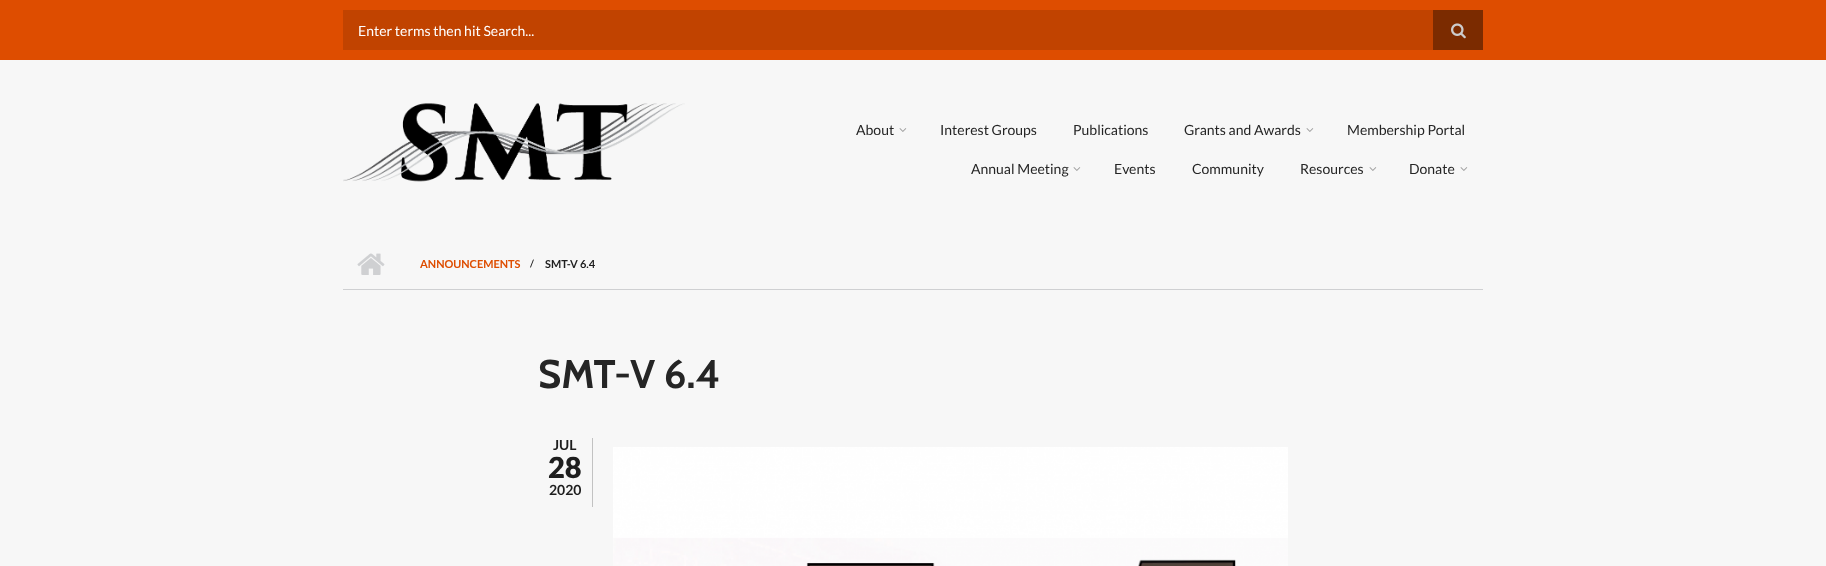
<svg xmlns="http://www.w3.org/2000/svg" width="1826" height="566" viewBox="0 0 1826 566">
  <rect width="100%" height="100%" fill="#f7f7f7"/>
  <path d="M0 0h1826v60H0z" fill="#de4d00"/>
  <path d="M343 10h1090v40H343z" fill="#c14300"/>
  <path d="M1433 10h50v40H1433z" fill="#7b2b00"/>
  <image x="1451" y="23" width="15" height="16" href="img/1.png"/>
  <image x="343" y="103" width="342" height="79" href="img/2.png"/>
  <image x="899" y="128" width="8" height="4" href="img/3.png"/>
  <image x="1306" y="128" width="8" height="4" href="img/3.png"/>
  <image x="1073" y="167" width="8" height="4" href="img/3.png"/>
  <image x="1369" y="167" width="8" height="4" href="img/3.png"/>
  <image x="1460" y="167" width="8" height="4" href="img/3.png"/>
  <path d="M343 289h1140v1H343z" fill="#cfd0d2"/>
  <image x="357" y="253" width="28" height="22" href="img/4.png"/>
  <path d="M592 438h1v69H592z" fill="#c2c2c2"/>
  <image x="613" y="447" width="675" height="119" href="img/5.png"/>
  <text x="358" y="36" font-family="Lato" font-size="14" fill="#fff">Enter terms then hit Search...</text>
  <g font-family="Lato" font-size="14" fill="#252525">
    <text x="856" y="135">About</text>
    <text x="940" y="135">Interest Groups</text>
    <text x="1073" y="135">Publications</text>
    <text x="1184" y="135">Grants and Awards</text>
    <text x="1347" y="135">Membership Portal</text>
    <text x="971" y="174">Annual Meeting</text>
    <text x="1114" y="174">Events</text>
    <text x="1192" y="174">Community</text>
    <text x="1300" y="174">Resources</text>
    <text x="1409" y="174">Donate</text>
  </g>
  <text x="420" y="268" font-family="Lato" font-size="11" font-weight="bold" fill="#de4d00">ANNOUNCEMENTS</text>
  <text x="530" y="267" font-family="Lato" font-size="10" font-weight="bold" fill="#1e1e1e">/</text>
  <text x="545" y="268" font-family="Lato" font-size="11" font-weight="bold" fill="#1e1e1e">SMT-V 6.4</text>
  <text x="538" y="388" font-family="Cabin" font-size="40" font-weight="bold" fill="#252525">SMT-V 6.4</text>
  <text x="553" y="450" font-family="Lato" font-size="14" font-weight="bold" fill="#1e1e1e">JUL</text>
  <text x="548" y="478" font-family="Lato" font-size="29" font-weight="900" fill="#1e1e1e">28</text>
  <text x="549" y="495" font-family="Lato" font-size="14" font-weight="bold" fill="#1e1e1e">2020</text>
</svg>
